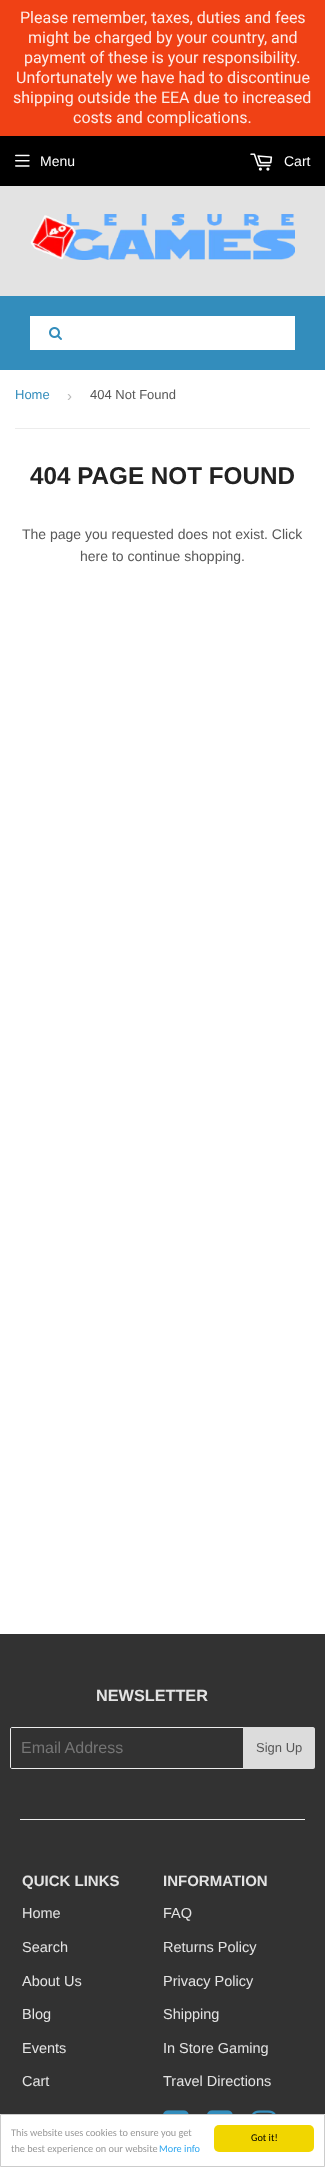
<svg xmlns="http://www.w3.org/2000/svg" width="325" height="2167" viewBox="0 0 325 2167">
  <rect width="100%" height="100%" fill="#fff"/>
  <path d="M0 0h325v136H0z" fill="#f04115"/>
  <path d="M0 136h325v50H0z" fill="#000"/>
  <image x="15" y="154" width="15" height="13" href="img/1.png"/>
  <image x="250" y="153" width="23" height="18" href="img/2.png"/>
  <path d="M0 186h325v110H0z" fill="#e3e3e3"/>
  <image x="30" y="214" width="265" height="46" href="img/3.png"/>
  <path d="M0 296h325v74H0z" fill="#338dbc"/>
  <path d="M30 316h265v34H30z" fill="#fff"/>
  <image x="49" y="327" width="13" height="13" href="img/4.png"/>
  <path d="M15 428h295v1H15z" fill="#ececec"/>
  <path d="M0 1634h325v480H0z" fill="#323232"/>
  <path d="M12 1727.5H243.5V1768.5H12C11 1768.5 10.5 1768 10.5 1767V1729C10.5 1728 11 1727.5 12 1727.5Z" fill="none" stroke="#ececec"/>
  <path d="M243 1727H313C314 1727 315 1728 315 1729V1767C315 1768 314 1769 313 1769H243Z" fill="#dcdcdc"/>
  <path d="M20 1819h285v1H20z" fill="#eee"/>
  <image x="163" y="2110" width="26" height="4" href="img/5.png"/>
  <image x="207" y="2110" width="26" height="4" href="img/5.png"/>
  <image x="252" y="2110" width="24" height="4" href="img/6.png"/>
  <path d="M0.5 2114.5h324v52H0.5z" fill="none" stroke="#ccc"/>
  <rect x="214" y="2125" width="100" height="27" rx="5" fill="#f1d600"/>
  <g font-family="Roboto" font-size="16" fill="#feece8">
    <text x="20" y="23">Please remember, taxes, duties and fees</text>
    <text x="28" y="43">might be charged by your country, and</text>
    <text x="24" y="63">payment of these is your responsibility.</text>
    <text x="16" y="83">Unfortunately we have had to discontinue</text>
    <text x="13" y="103">shipping outside the EEA due to increased</text>
    <text x="73" y="123">costs and complications.</text>
  </g>
  <g font-family="Liberation Sans" font-size="14" fill="#fff">
    <text x="40" y="166">Menu</text>
    <text x="284" y="166">Cart</text>
  </g>
  <text x="15" y="399" font-family="Liberation Sans" font-size="13" fill="#338dbc">Home</text>
  <text x="67" y="401" font-family="Liberation Sans" font-size="15" fill="#bbb">›</text>
  <text x="90" y="399" font-family="Liberation Sans" font-size="13" fill="#585858">404 Not Found</text>
  <text x="30" y="484" font-family="Liberation Sans" font-size="24.25" font-weight="bold" fill="#222">404 PAGE NOT FOUND</text>
  <g font-family="Liberation Sans" font-size="14" fill="#585858">
    <text x="22" y="539">The page you requested does not exist. Click</text>
    <text x="80" y="561">here to continue shopping.</text>
  </g>
  <text x="96" y="1701" font-family="Liberation Sans" font-size="16.25" font-weight="bold" fill="#e3e3e3">NEWSLETTER</text>
  <text x="21" y="1753" font-family="Liberation Sans" font-size="16" fill="#757575">Email Address</text>
  <text x="256" y="1752" font-family="Liberation Sans" font-size="13" fill="#585858">Sign Up</text>
  <text x="22" y="1886" font-family="Liberation Sans" font-size="15" font-weight="bold" fill="#e3e3e3">QUICK LINKS</text>
  <g font-family="Liberation Sans" font-size="14.5" fill="#e3e3e3">
    <text x="22" y="1918">Home</text>
    <text x="22" y="1952">Search</text>
    <text x="22" y="1986">About Us</text>
    <text x="22" y="2019">Blog</text>
    <text x="22" y="2053">Events</text>
    <text x="22" y="2086">Cart</text>
  </g>
  <text x="163" y="1886" font-family="Liberation Sans" font-size="15" font-weight="bold" fill="#e3e3e3">INFORMATION</text>
  <g font-family="Liberation Sans" font-size="14.5" fill="#e3e3e3">
    <text x="163" y="1918">FAQ</text>
    <text x="163" y="1952">Returns Policy</text>
    <text x="163" y="1986">Privacy Policy</text>
    <text x="163" y="2019">Shipping</text>
    <text x="163" y="2053">In Store Gaming</text>
    <text x="163" y="2086">Travel Directions</text>
  </g>
  <g font-family="Carlito" font-size="10.25" fill="#999">
    <text x="11" y="2136">This website uses cookies to ensure you get</text>
    <text x="11" y="2152">the best experience on our website</text>
  </g>
  <text x="159" y="2152" font-family="Carlito" font-size="10.25" fill="#31a8f0">More info</text>
  <text x="251" y="2141" font-family="Carlito" font-size="10.25" fill="#000">Got it!</text>
</svg>
